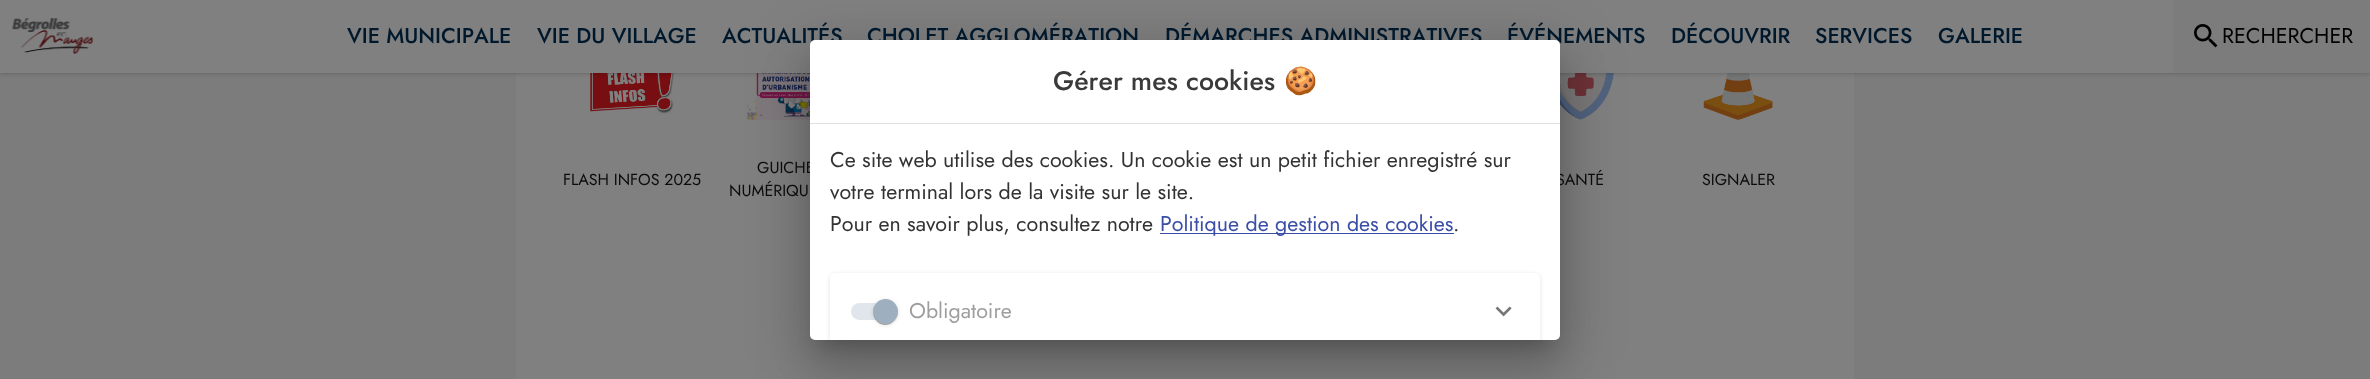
<svg xmlns="http://www.w3.org/2000/svg" width="2370" height="379" viewBox="0 0 2370 379">
  <style>*{font-kerning:none!important;font-variant-ligatures:none!important}</style>
  <defs>
    <clipPath id="clip1"><rect x="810" y="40" width="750" height="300" rx="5"/></clipPath>
    <clipPath id="clip2"><path d="M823 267H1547V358H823ZM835 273H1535C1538 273 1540 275 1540 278V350H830V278C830 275 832 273 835 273Z" clip-rule="evenodd"/></clipPath>
  </defs>
  <rect width="100%" height="100%" fill="#7c7c7c"/>
  <path d="M516 73h1338v306H516z" fill="#808080"/>
  <image x="590" y="73" width="85" height="41" href="img/3.png"/>
  <image x="747" y="73" width="63" height="47" href="img/4.png"/>
  <image x="1560" y="73" width="54" height="47" href="img/5.png"/>
  <image x="1703" y="73" width="70" height="47" href="img/6.png"/>
  <path d="M0 0h2370v73H0z" fill="#00000040" filter="blur(2.5px)"/>
  <path d="M0 0h2173v73H0z" fill="#808080"/>
  <image x="12" y="18" width="81" height="36" href="img/1.png"/>
  <path d="M2173 0h197v73H2173z" fill="#7c7c7c"/>
  <image x="2194" y="24" width="24" height="24" href="img/2.png"/>
  <rect x="800" y="41" width="770" height="320" rx="15" fill="#0000001f" filter="blur(29px)"/>
  <rect x="806" y="66" width="758" height="308" rx="9" fill="#00000024" filter="blur(24px)"/>
  <path d="M819 63h732v282H819z" fill="#00000033" filter="blur(9.5px)"/>
  <g font-family="Jost" font-size="21.4" font-weight="500" fill="#00182c">
    <text x="347" y="43">VIE MUNICIPALE</text>
    <text x="537" y="43">VIE DU VILLAGE</text>
    <text x="722" y="43">ACTUALITÉS</text>
    <text x="867" y="43">CHOLET AGGLOMÉRATION</text>
    <text x="1165" y="43">DÉMARCHES ADMINISTRATIVES</text>
    <text x="1507" y="43">ÉVÉNEMENTS</text>
    <text x="1671" y="43">DÉCOUVRIR</text>
    <text x="1815" y="43">SERVICES</text>
    <text x="1938" y="43">GALERIE</text>
  </g>
  <text x="2222" y="43" font-family="Jost" font-size="21.4" fill="#000">RECHERCHER</text>
  <g font-family="Jost" font-size="16" fill="#0b0b0b">
    <text x="563" y="185">FLASH INFOS 2025</text>
    <text x="757" y="173">GUICHE</text>
    <text x="729" y="196">NUMÉRIQU</text>
    <text x="1556" y="185">SANTÉ</text>
    <text x="1702" y="185">SIGNALER</text>
  </g>
  <rect x="810" y="40" width="750" height="300" rx="5" fill="#fff"/>
  <text x="1053" y="90" font-family="Jost" font-size="26.75" font-weight="500" fill="#3a3a3a">Gérer mes cookies</text>
  <text x="1284" y="90" font-family="Noto Color Emoji" font-size="26.75" fill="#3a3a3a">🍪</text>
  <path d="M810 123h750v1H810z" fill="#e0e0e0"/>
  <g font-family="Jost" font-size="21.4" fill="#333">
    <text x="830" y="167">Ce site web utilise des cookies. Un cookie est un petit fichier enregistré sur</text>
    <text x="830" y="199">votre terminal lors de la visite sur le site.</text>
    <text x="830" y="231">Pour en savoir plus, consultez notre</text>
  </g>
  <path d="M1160 233h294v1H1160z" fill="#3a4da7"/>
  <text x="1160" y="231" font-family="Jost" font-size="21.4" fill="#3a4da7">Politique de gestion des cookies</text>
  <text x="1453" y="231" font-family="Jost" font-size="21.4" fill="#333">.</text>
  <g clip-path="url(#clip1)">
    <g clip-path="url(#clip2)">
      <rect x="830" y="274" width="710" height="77" rx="5" fill="#0000001f" filter="blur(2px)"/>
    </g>
  </g>
  <rect x="851" y="303" width="43" height="17" rx="8.5" fill="#e0e6eb"/>
  <rect x="874" y="303" width="22" height="22" rx="11" fill="#00000033" filter="blur(0.5px)"/>
  <rect x="873" y="300" width="25" height="25" rx="12.5" fill="#00000024" filter="blur(0.5px)"/>
  <rect x="873" y="300" width="25" height="25" rx="12.5" fill="#0000001f" filter="blur(2px)"/>
  <circle cx="885.5" cy="311.5" r="12.5" fill="#9eb0bf"/>
  <text x="909" y="318" font-family="Jost" font-size="21.4" fill="#9e9e9e">Obligatoire</text>
  <image x="1495" y="306" width="17" height="11" href="img/7.png"/>
</svg>
